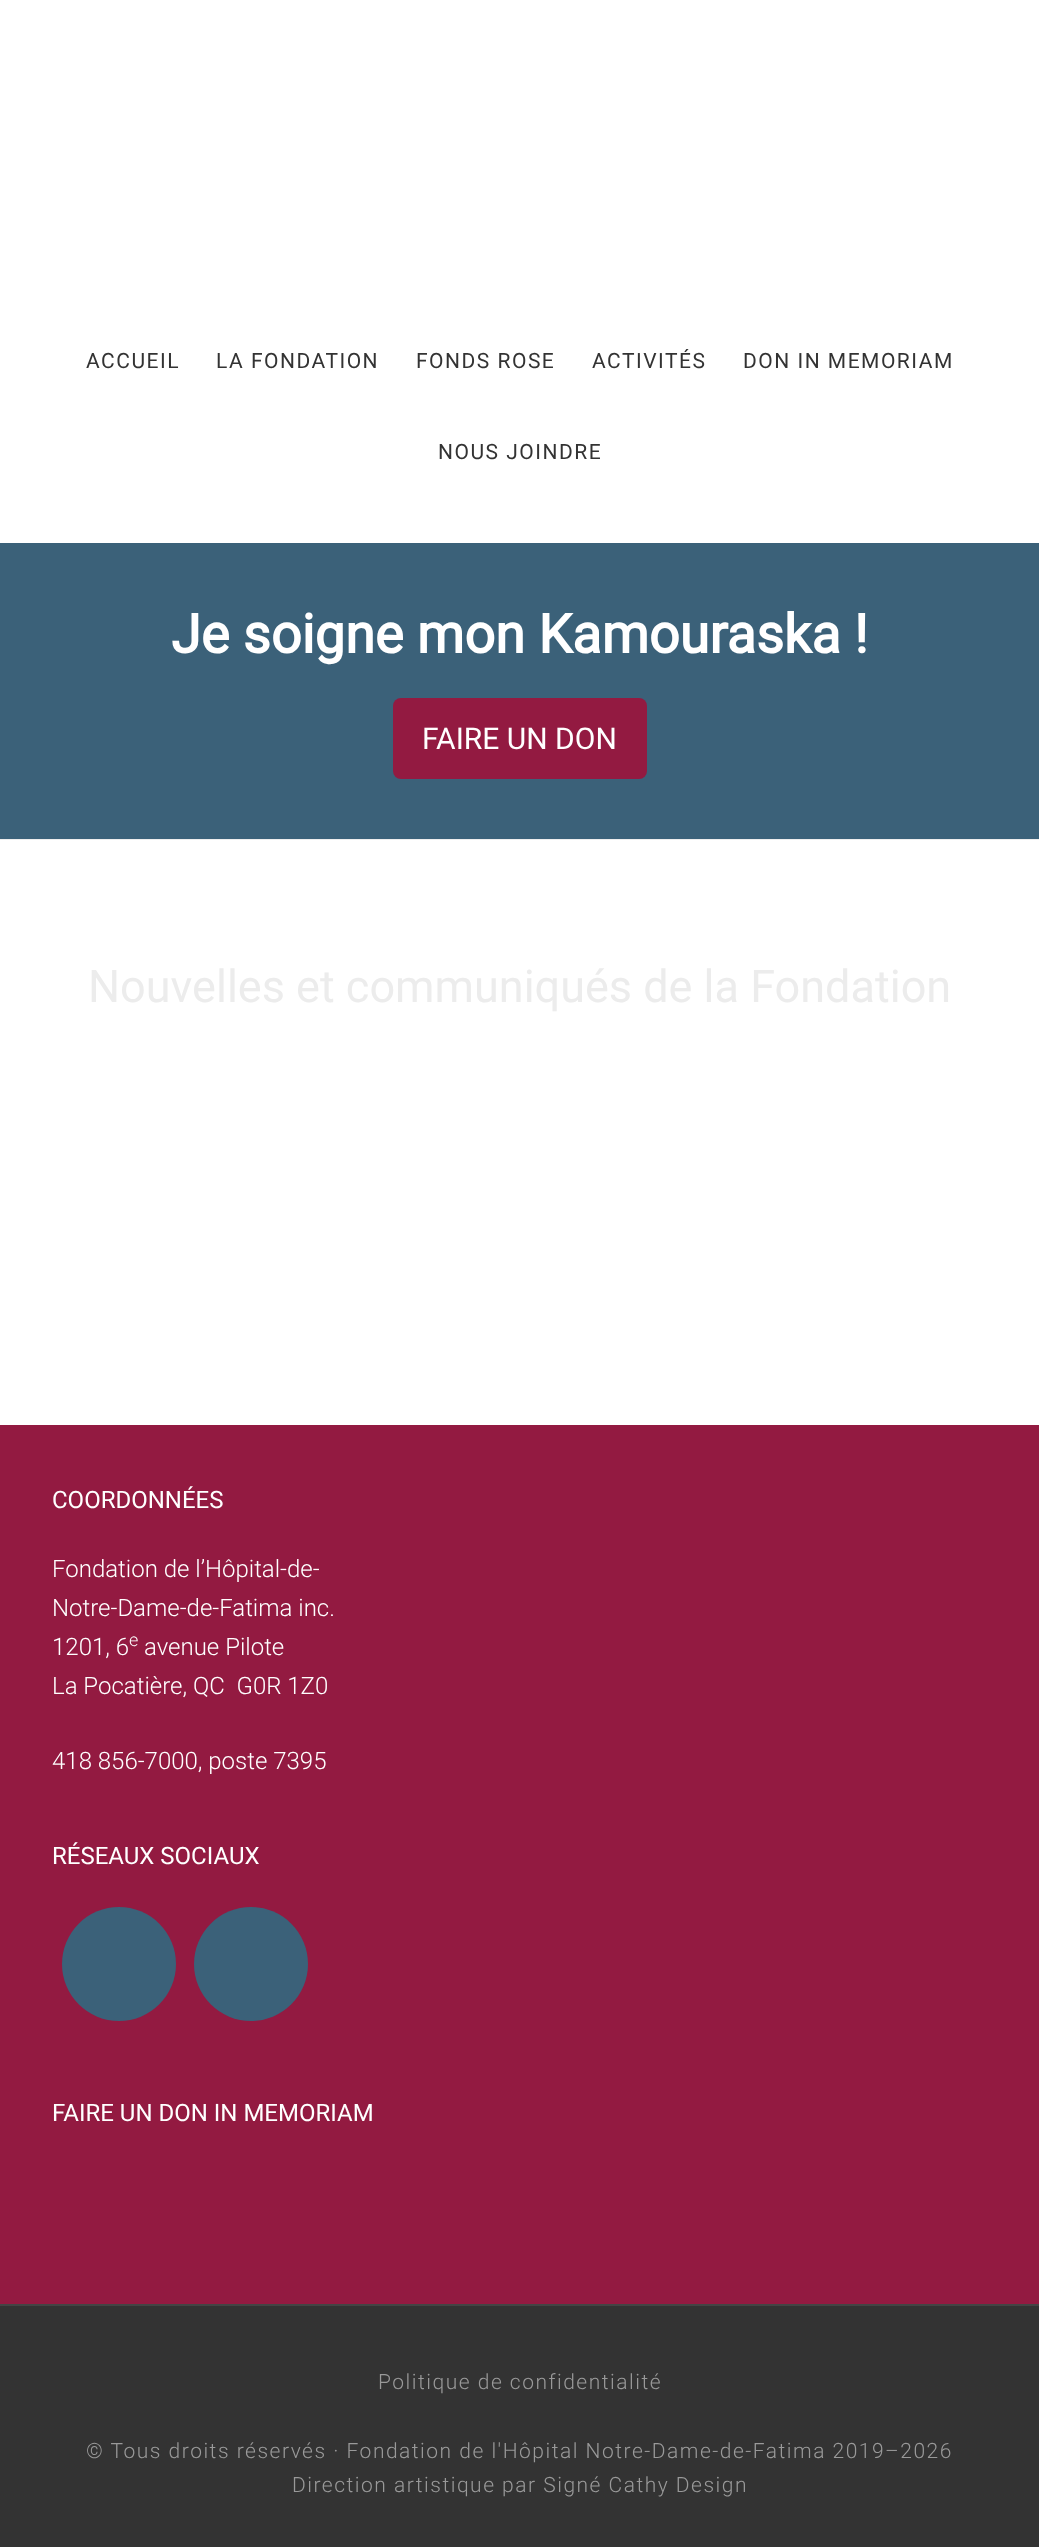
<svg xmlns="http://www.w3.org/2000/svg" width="1039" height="2547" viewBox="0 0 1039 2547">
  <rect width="100%" height="100%" fill="#fff"/>
  <path d="M0 543h1039v296H0z" fill="#3b6179"/>
  <path d="M0 839h1039v1H0z" fill="#eee"/>
  <rect x="393" y="698" width="254" height="81" rx="8" fill="#931a41"/>
  <path d="M0 1425h1039v879H0z" fill="#931a41"/>
  <path d="M0 2304h1039v2H0z" fill="#444"/>
  <circle cx="119" cy="1964" r="57" fill="#3b6179"/>
  <circle cx="251" cy="1964" r="57" fill="#3b6179"/>
  <path d="M0 2306h1039v241H0z" fill="#333"/>
  <g font-family="Roboto" font-size="21" letter-spacing="1.5" fill="#333">
    <text x="86" y="368">ACCUEIL</text>
    <text x="216" y="368">LA FONDATION</text>
    <text x="416" y="368">FONDS ROSE</text>
    <text x="592" y="368">ACTIVITÉS</text>
    <text x="743" y="368">DON IN MEMORIAM</text>
    <text x="438" y="459">NOUS JOINDRE</text>
  </g>
  <text x="171" y="653" font-family="Roboto" font-size="54" font-weight="bold" fill="#fff">Je soigne mon Kamouraska !</text>
  <text x="422" y="749" font-family="Roboto" font-size="30" fill="#fff">FAIRE UN DON</text>
  <text x="88" y="1002" font-family="Roboto" font-size="45" fill="#ececec">Nouvelles et communiqués de la Fondation</text>
  <text x="52" y="1508" font-family="Roboto" font-size="24" fill="#fff">COORDONNÉES</text>
  <g font-family="Roboto" font-size="24" font-weight="300" fill="#fff">
    <text x="52" y="1577">Fondation de l’Hôpital-de-</text>
    <text x="52" y="1616">Notre-Dame-de-Fatima inc.</text>
    <text x="52" y="1655">1201, 6</text>
  </g>
  <text x="129" y="1646" font-family="Roboto" font-size="18" font-weight="300" fill="#fff">e</text>
  <g font-family="Roboto" font-size="24" font-weight="300" fill="#fff">
    <text x="144" y="1655">avenue Pilote</text>
    <text x="52" y="1694" xml:space="preserve">La Pocatière, QC  G0R 1Z0</text>
    <text x="52" y="1769">418 856-7000, poste 7395</text>
  </g>
  <g font-family="Roboto" font-size="24" fill="#fff">
    <text x="52" y="1864">RÉSEAUX SOCIAUX</text>
    <text x="52" y="2121">FAIRE UN DON IN MEMORIAM</text>
  </g>
  <g font-family="Roboto" font-size="21" font-weight="300" letter-spacing="1.5" fill="#999">
    <text x="378" y="2389">Politique de confidentialité</text>
    <text x="86" y="2458">© Tous droits réservés · Fondation de l'Hôpital Notre-Dame-de-Fatima 2019–2026</text>
    <text x="292" y="2492">Direction artistique par Signé Cathy Design</text>
  </g>
</svg>
